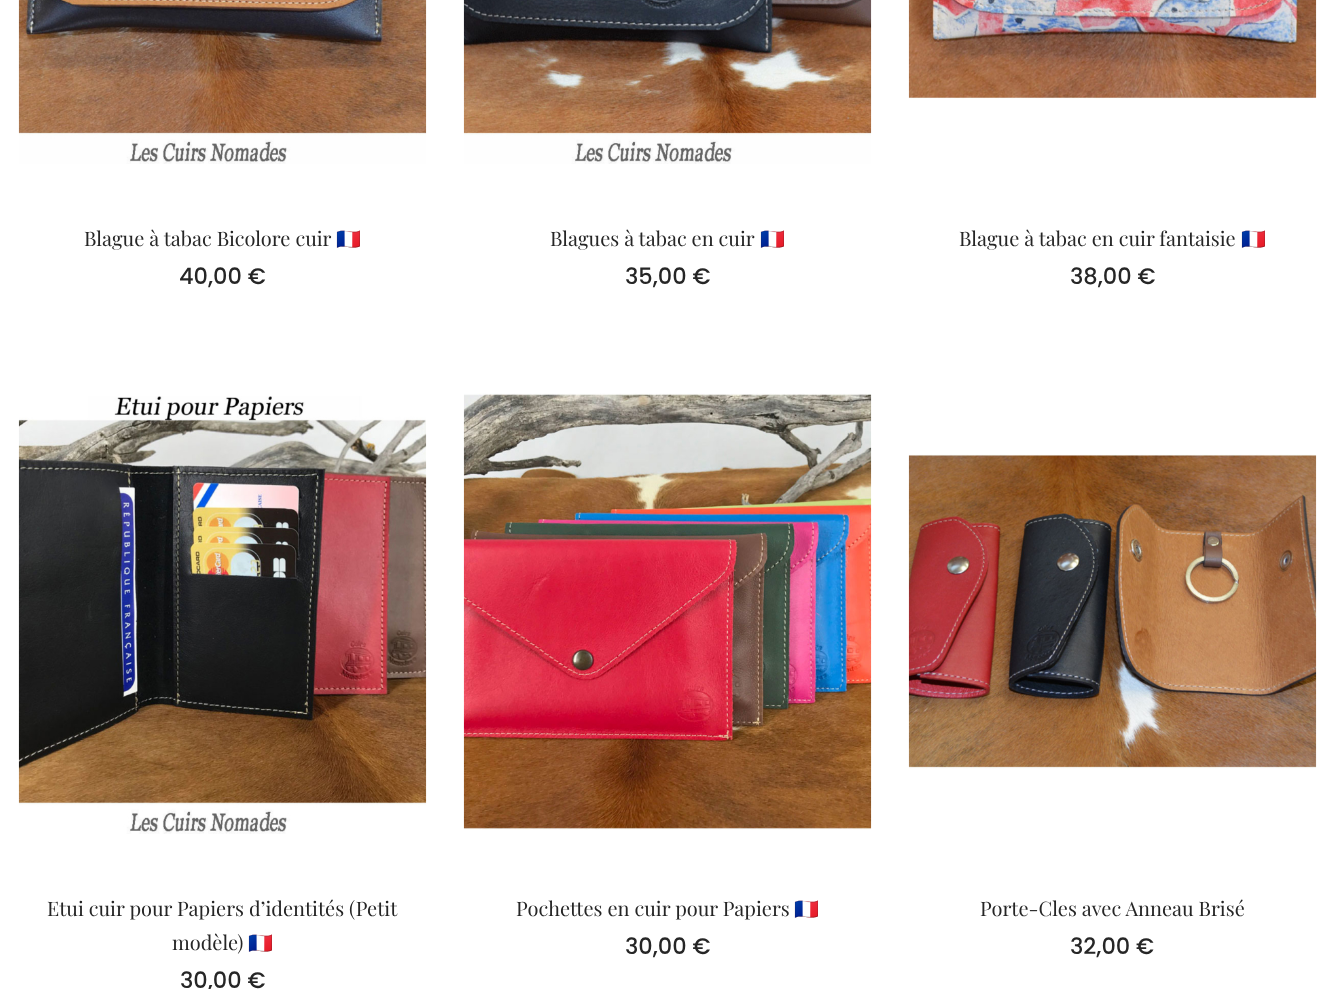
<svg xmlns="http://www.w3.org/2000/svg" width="1334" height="989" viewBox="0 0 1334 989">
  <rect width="100%" height="100%" fill="#fff"/>
  <image x="18" y="0" width="409" height="164" href="img/1.png"/>
  <image x="463" y="0" width="409" height="164" href="img/2.png"/>
  <image x="908" y="0" width="409" height="99" href="img/3.png"/>
  <image x="18" y="396" width="409" height="438" href="img/4.png"/>
  <image x="463" y="393" width="409" height="437" href="img/5.png"/>
  <image x="908" y="454" width="409" height="315" href="img/6.png"/>
  <text x="84" y="246" font-family="Playfair Display" font-size="20" fill="#262626">Blague à tabac Bicolore cuir</text>
  <text x="336" y="246" font-family="Noto Color Emoji" font-size="20" fill="#262626">🇫🇷</text>
  <text x="179" y="284" font-family="Poppins" font-size="22.5" font-weight="500" fill="#262626">40,00 €</text>
  <text x="550" y="246" font-family="Playfair Display" font-size="20" fill="#262626">Blagues à tabac en cuir</text>
  <text x="760" y="246" font-family="Noto Color Emoji" font-size="20" fill="#262626">🇫🇷</text>
  <text x="625" y="284" font-family="Poppins" font-size="22.5" font-weight="500" fill="#262626">35,00 €</text>
  <text x="959" y="246" font-family="Playfair Display" font-size="20" fill="#262626">Blague à tabac en cuir fantaisie</text>
  <text x="1241" y="246" font-family="Noto Color Emoji" font-size="20" fill="#262626">🇫🇷</text>
  <text x="1070" y="284" font-family="Poppins" font-size="22.5" font-weight="500" fill="#262626">38,00 €</text>
  <g font-family="Playfair Display" font-size="20" fill="#262626">
    <text x="47" y="916">Etui cuir pour Papiers d’identités (Petit</text>
    <text x="172" y="950">modèle)</text>
  </g>
  <text x="248" y="950" font-family="Noto Color Emoji" font-size="20" fill="#262626">🇫🇷</text>
  <text x="180" y="988" font-family="Poppins" font-size="22.5" font-weight="500" fill="#262626">30,00 €</text>
  <text x="516" y="916" font-family="Playfair Display" font-size="20" fill="#262626">Pochettes en cuir pour Papiers</text>
  <text x="794" y="916" font-family="Noto Color Emoji" font-size="20" fill="#262626">🇫🇷</text>
  <text x="625" y="954" font-family="Poppins" font-size="22.5" font-weight="500" fill="#262626">30,00 €</text>
  <text x="980" y="916" font-family="Playfair Display" font-size="20" fill="#262626">Porte-Cles avec Anneau Brisé</text>
  <text x="1070" y="954" font-family="Poppins" font-size="22.5" font-weight="500" fill="#262626">32,00 €</text>
</svg>
